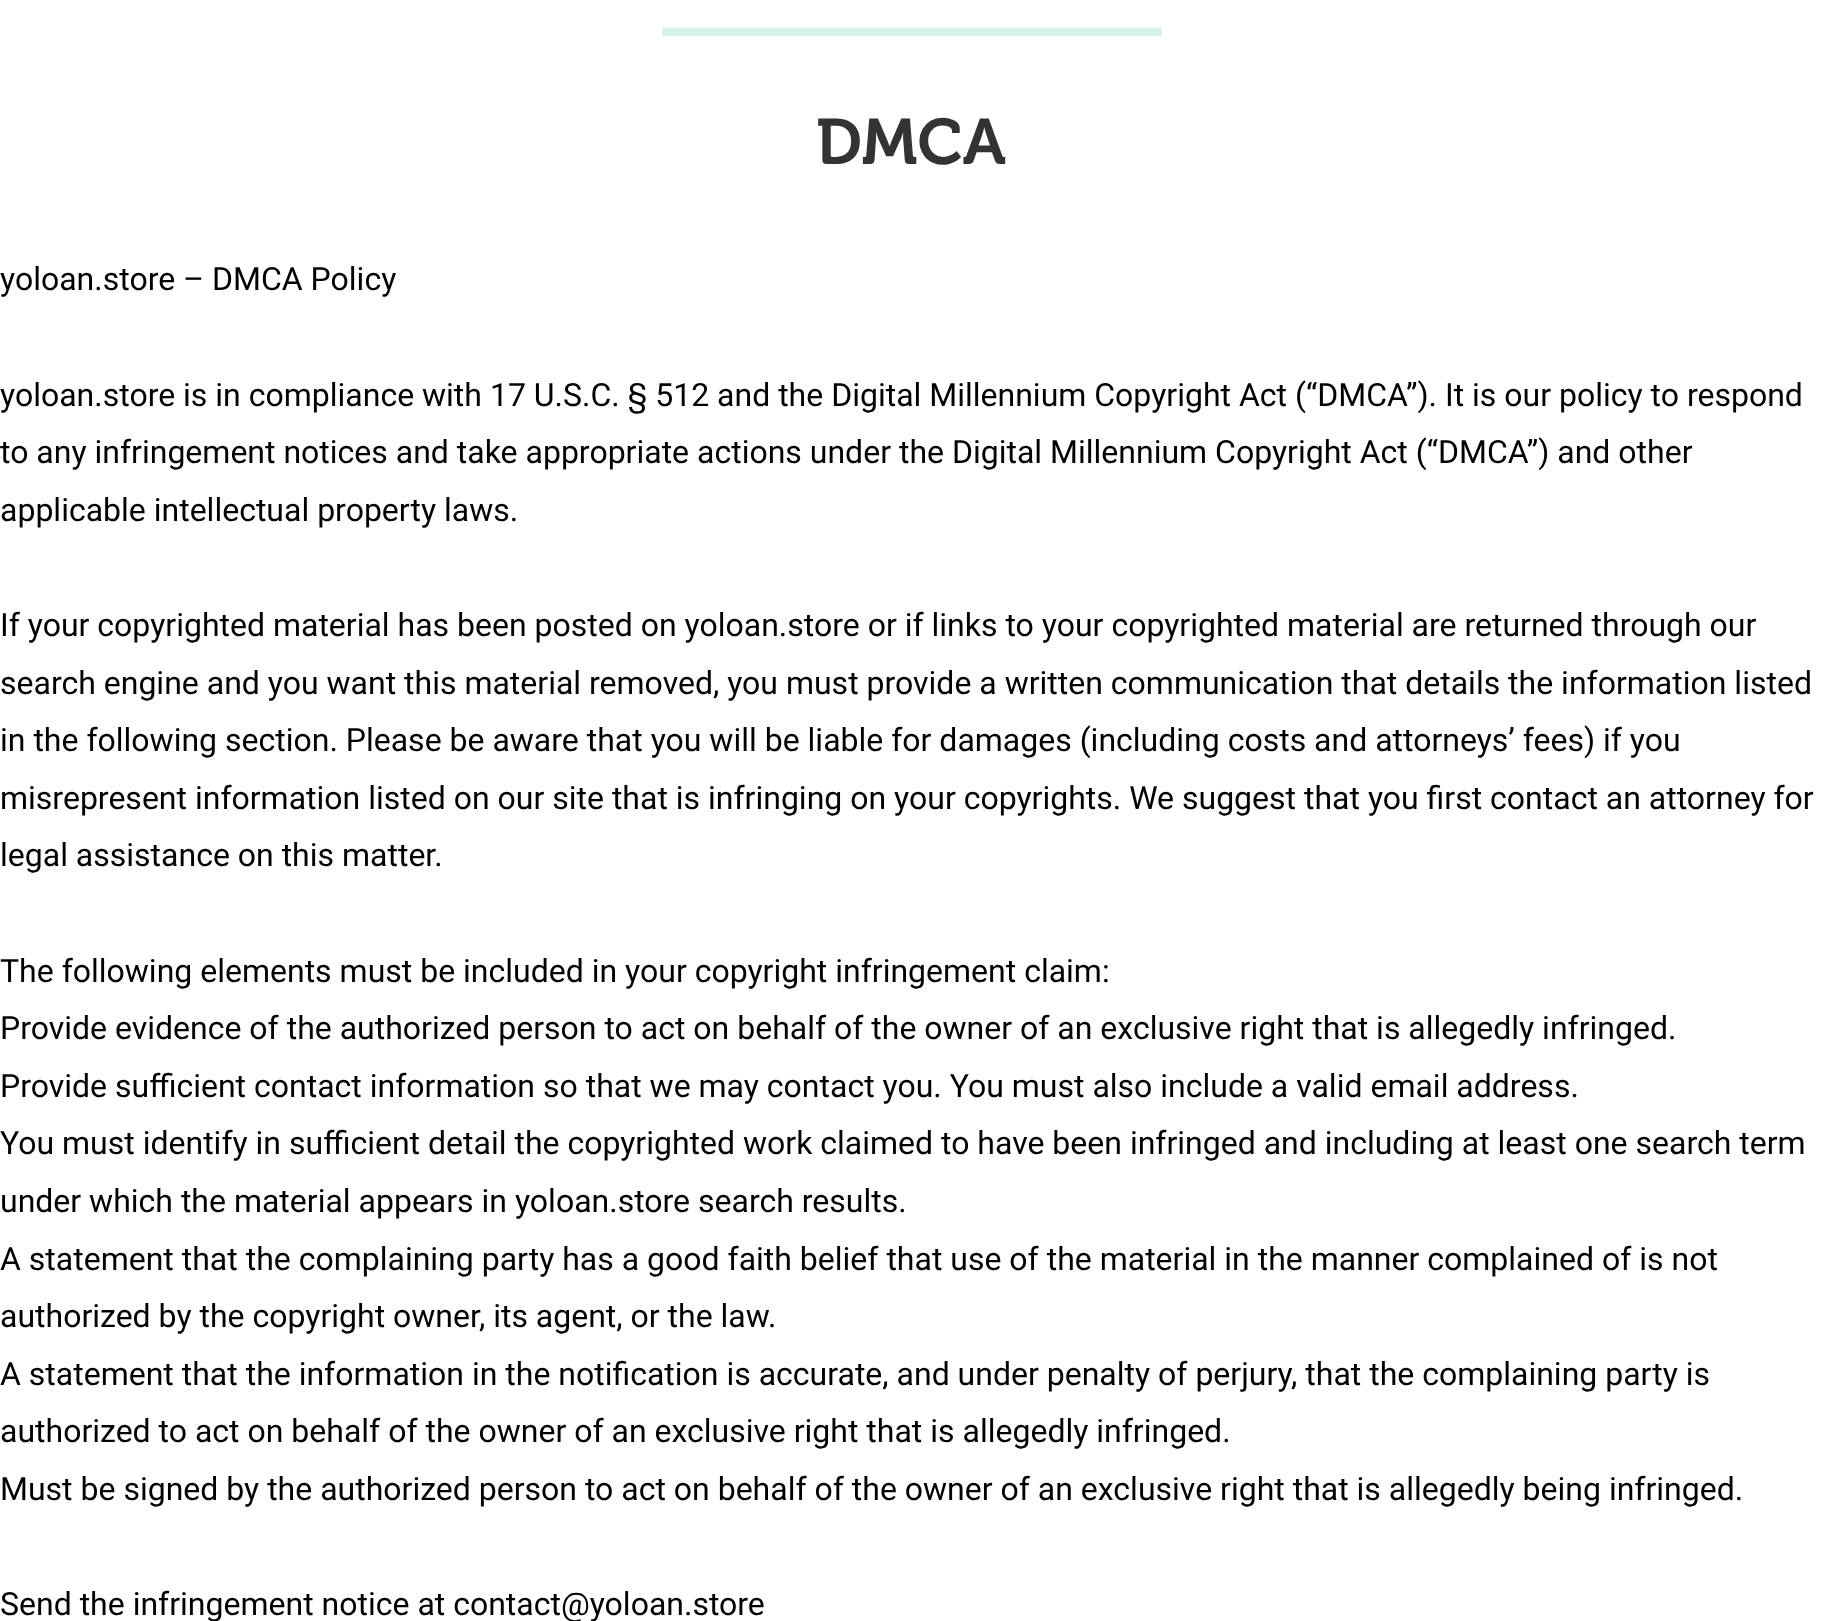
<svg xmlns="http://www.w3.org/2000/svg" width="1822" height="1621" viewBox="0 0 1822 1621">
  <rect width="100%" height="100%" fill="#fff"/>
  <image x="662" y="26" width="500" height="10" href="img/1.png"/>
  <text x="816" y="164" font-family="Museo" font-size="64" font-weight="600" fill="#333">DMCA</text>
  <g font-family="Roboto" font-size="32" fill="#000">
    <text x="0" y="290">yoloan.store – DMCA Policy</text>
    <text x="0" y="406">yoloan.store is in compliance with 17 U.S.C. § 512 and the Digital Millennium Copyright Act (“DMCA”). It is our policy to respond</text>
    <text x="0" y="463">to any infringement notices and take appropriate actions under the Digital Millennium Copyright Act (“DMCA”) and other</text>
    <text x="0" y="521">applicable intellectual property laws.</text>
    <text x="0" y="636">If your copyrighted material has been posted on yoloan.store or if links to your copyrighted material are returned through our</text>
    <text x="0" y="694">search engine and you want this material removed, you must provide a written communication that details the information listed</text>
    <text x="0" y="751">in the following section. Please be aware that you will be liable for damages (including costs and attorneys’ fees) if you</text>
    <text x="0" y="809">misrepresent information listed on our site that is infringing on your copyrights. We suggest that you first contact an attorney for</text>
    <text x="0" y="866">legal assistance on this matter.</text>
    <text x="0" y="982">The following elements must be included in your copyright infringement claim:</text>
    <text x="0" y="1039">Provide evidence of the authorized person to act on behalf of the owner of an exclusive right that is allegedly infringed.</text>
    <text x="0" y="1097">Provide sufficient contact information so that we may contact you. You must also include a valid email address.</text>
    <text x="0" y="1154">You must identify in sufficient detail the copyrighted work claimed to have been infringed and including at least one search term</text>
    <text x="0" y="1212">under which the material appears in yoloan.store search results.</text>
    <text x="0" y="1270">A statement that the complaining party has a good faith belief that use of the material in the manner complained of is not</text>
    <text x="0" y="1327">authorized by the copyright owner, its agent, or the law.</text>
    <text x="0" y="1385">A statement that the information in the notification is accurate, and under penalty of perjury, that the complaining party is</text>
    <text x="0" y="1442">authorized to act on behalf of the owner of an exclusive right that is allegedly infringed.</text>
    <text x="0" y="1500">Must be signed by the authorized person to act on behalf of the owner of an exclusive right that is allegedly being infringed.</text>
    <text x="0" y="1615">Send the infringement notice at contact@yoloan.store</text>
  </g>
</svg>
